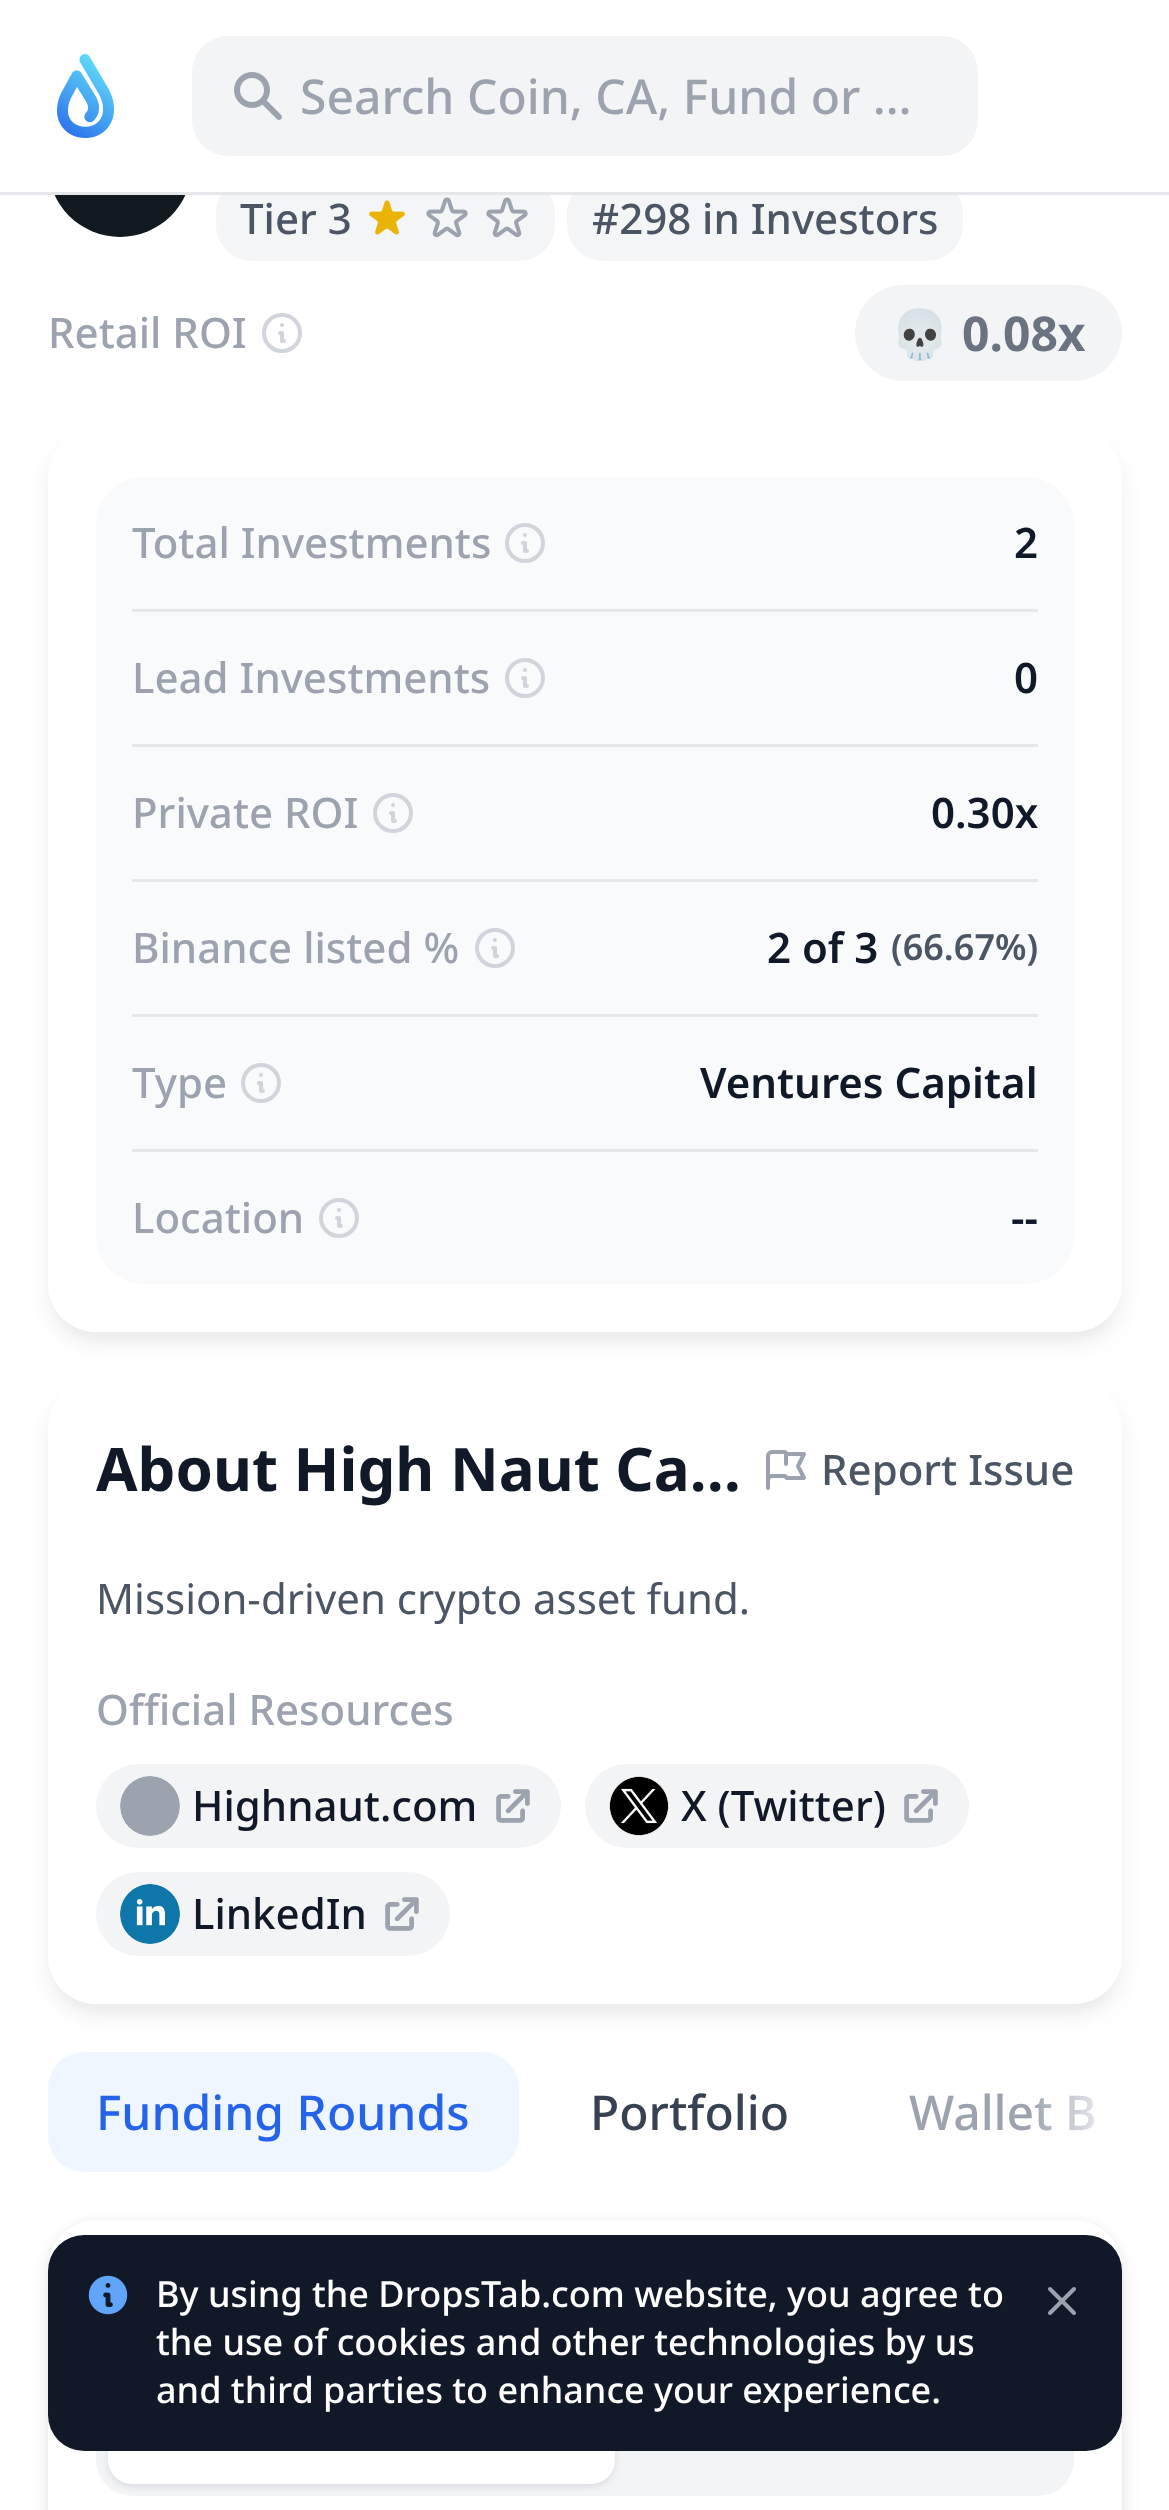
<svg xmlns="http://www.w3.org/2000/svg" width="1169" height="2510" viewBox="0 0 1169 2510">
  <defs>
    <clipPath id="clip1"><path d="M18 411H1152V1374H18ZM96 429H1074C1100.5 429 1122 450.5 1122 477V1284C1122 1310.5 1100.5 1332 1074 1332H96C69.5 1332 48 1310.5 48 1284V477C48 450.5 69.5 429 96 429Z" clip-rule="evenodd"/></clipPath>
    <clipPath id="clip2"><path d="M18 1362H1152V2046H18ZM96 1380H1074C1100.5 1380 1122 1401.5 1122 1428V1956C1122 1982.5 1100.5 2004 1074 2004H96C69.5 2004 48 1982.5 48 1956V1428C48 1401.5 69.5 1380 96 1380Z" clip-rule="evenodd"/></clipPath>
    <linearGradient id="g1" gradientUnits="userSpaceOnUse" x1="1029" y1="2112" x2="1125" y2="2112"><stop offset="0" stop-color="#fff" stop-opacity="0"/><stop offset="1" stop-color="#fff"/></linearGradient>
  </defs>
  <rect width="100%" height="100%" fill="#fff"/>
  <rect x="216" y="177" width="339" height="84" rx="36" fill="#f4f5f6"/>
  <rect x="567" y="177" width="396" height="84" rx="36" fill="#f4f5f6"/>
  <path d="M223 177h733v15H223z" fill="#fff"/>
  <path d="M0 192h1169v3H0z" fill="#e5e7eb"/>
  <image x="57" y="54" width="57" height="84" href="img/1.png"/>
  <rect x="192" y="36" width="786" height="120" rx="36" fill="#f3f4f6"/>
  <image x="234" y="72" width="48" height="48" href="img/2.png"/>
  <image x="54" y="195" width="132" height="42" href="img/3.png"/>
  <image x="369" y="200" width="36" height="35" href="img/4.png"/>
  <image x="426" y="197" width="42" height="41" href="img/5.png"/>
  <image x="486" y="197" width="42" height="41" href="img/5.png"/>
  <path d="M284 341H282V333H280M282 325H282M300 333C300 343 292 351 282 351C272 351 264 343 264 333C264 323 272 315 282 315C292 315 300 323 300 333Z" fill="none" stroke="#d1d5db" stroke-width="4" stroke-linecap="round" stroke-linejoin="round"/>
  <rect x="855" y="285" width="267" height="96" rx="48" fill="#f3f4f6"/>
  <g clip-path="url(#clip1)">
    <rect x="51" y="444" width="1068" height="897" rx="45" fill="#1118271a" filter="blur(10.5px)"/>
  </g>
  <path d="M144 477H1026C1052.5 477 1074 498.5 1074 525V612H96V525C96 498.5 117.5 477 144 477Z" fill="#f8fafc"/>
  <path d="M527 551H525V543H523M525 535H525M543 543C543 553 535 561 525 561C515 561 507 553 507 543C507 533 515 525 525 525C535 525 543 533 543 543Z" fill="none" stroke="#d1d5db" stroke-width="4" stroke-linecap="round" stroke-linejoin="round"/>
  <path d="M132 609h906v3H132z" fill="#e5e7eb"/>
  <path d="M96 612h978v540H96z" fill="#f8fafc"/>
  <path d="M527 686H525V678H523M525 670H525M543 678C543 688 535 696 525 696C515 696 507 688 507 678C507 668 515 660 525 660C535 660 543 668 543 678Z" fill="none" stroke="#d1d5db" stroke-width="4" stroke-linecap="round" stroke-linejoin="round"/>
  <path d="M132 744h906v3H132z" fill="#e5e7eb"/>
  <path d="M395 821H393V813H391M393 805H393M411 813C411 823 403 831 393 831C383 831 375 823 375 813C375 803 383 795 393 795C403 795 411 803 411 813Z" fill="none" stroke="#d1d5db" stroke-width="4" stroke-linecap="round" stroke-linejoin="round"/>
  <path d="M132 879h906v3H132z" fill="#e5e7eb"/>
  <path d="M497 956H495V948H493M495 940H495M513 948C513 958 505 966 495 966C485 966 477 958 477 948C477 938 485 930 495 930C505 930 513 938 513 948Z" fill="none" stroke="#d1d5db" stroke-width="4" stroke-linecap="round" stroke-linejoin="round"/>
  <path d="M132 1014h906v3H132z" fill="#e5e7eb"/>
  <path d="M263 1091H261V1083H259M261 1075H261M279 1083C279 1093 271 1101 261 1101C251 1101 243 1093 243 1083C243 1073 251 1065 261 1065C271 1065 279 1073 279 1083Z" fill="none" stroke="#d1d5db" stroke-width="4" stroke-linecap="round" stroke-linejoin="round"/>
  <path d="M132 1149h906v3H132z" fill="#e5e7eb"/>
  <path d="M96 1152H1074V1236C1074 1262.5 1052.5 1284 1026 1284H144C117.5 1284 96 1262.5 96 1236Z" fill="#f8fafc"/>
  <path d="M341 1226H339V1218H337M339 1210H339M357 1218C357 1228 349 1236 339 1236C329 1236 321 1228 321 1218C321 1208 329 1200 339 1200C349 1200 357 1208 357 1218Z" fill="none" stroke="#d1d5db" stroke-width="4" stroke-linecap="round" stroke-linejoin="round"/>
  <g clip-path="url(#clip2)">
    <rect x="51" y="1395" width="1068" height="618" rx="45" fill="#1118271a" filter="blur(10.5px)"/>
  </g>
  <path d="M768 1488V1480M768 1480V1456C768 1454 770 1452 772 1452H785L787 1454H804L798 1466L804 1478H787L785 1476H772C770 1476 768 1478 768 1480ZM786 1453V1464" fill="none" stroke="#9ca3af" stroke-width="4" stroke-linecap="round" stroke-linejoin="round"/>
  <rect x="96" y="1764" width="465" height="84" rx="42" fill="#f3f4f6"/>
  <image x="120" y="1776" width="60" height="60" href="img/6.png"/>
  <image x="496" y="1789" width="34" height="34" href="img/7.png"/>
  <rect x="585" y="1764" width="384" height="84" rx="42" fill="#f3f4f6"/>
  <image x="609" y="1776" width="60" height="60" href="img/8.png"/>
  <image x="904" y="1789" width="34" height="34" href="img/7.png"/>
  <rect x="96" y="1872" width="354" height="84" rx="42" fill="#f3f4f6"/>
  <image x="120" y="1884" width="60" height="60" href="img/9.png"/>
  <image x="385" y="1897" width="34" height="34" href="img/7.png"/>
  <rect x="48" y="2052" width="471" height="120" rx="36" fill="#eff6ff"/>
  <rect x="51" y="2223" width="1068" height="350" rx="45" fill="#1118271a" filter="blur(6px)"/>
  <rect x="51" y="2235" width="1068" height="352" rx="45" fill="#1118271a" filter="blur(10.5px)"/>
  <rect x="48" y="2220" width="1074" height="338" rx="48" fill="#fff"/>
  <rect x="96" y="2376" width="978" height="120" rx="36" fill="#f3f4f6"/>
  <rect x="108" y="2391" width="507" height="96" rx="24" fill="#1118271a" filter="blur(3px)"/>
  <rect x="108" y="2388" width="507" height="96" rx="24" fill="#fff"/>
  <rect x="48" y="2235" width="1074" height="216" rx="36" fill="#111827"/>
  <image x="88" y="2275" width="40" height="40" href="img/10.png"/>
  <path d="M1050 2313L1074 2289M1050 2289L1074 2313" fill="none" stroke="#9ca3af" stroke-width="4" stroke-linecap="round" stroke-linejoin="round"/>
  <text x="300" y="114" font-family="Noto Sans" font-size="48" font-weight="500" fill="#9ca3af">Search Coin, CA, Fund or …</text>
  <g font-family="Noto Sans" font-size="42" font-weight="500" fill="#4b5563">
    <text x="240" y="234">Tier 3</text>
    <text x="592" y="234">#298 in Investors</text>
  </g>
  <text x="48" y="348" font-family="Noto Sans" font-size="42" font-weight="500" fill="#9ca3af">Retail ROI</text>
  <text x="890" y="351" font-family="Noto Color Emoji" font-size="48" font-weight="bold" fill="#6b7280">💀</text>
  <text x="962" y="351" font-family="Noto Sans" font-size="48" font-weight="bold" fill="#6b7280">0.08x</text>
  <text x="132" y="558" font-family="Noto Sans" font-size="42" font-weight="500" fill="#9ca3af">Total Investments</text>
  <text x="1014" y="558" font-family="Noto Sans" font-size="42" font-weight="600" fill="#111827">2</text>
  <text x="132" y="693" font-family="Noto Sans" font-size="42" font-weight="500" fill="#9ca3af">Lead Investments</text>
  <text x="1014" y="693" font-family="Noto Sans" font-size="42" font-weight="600" fill="#111827">0</text>
  <text x="132" y="828" font-family="Noto Sans" font-size="42" font-weight="500" fill="#9ca3af">Private ROI</text>
  <text x="931" y="828" font-family="Noto Sans" font-size="42" font-weight="600" fill="#111827">0.30x</text>
  <text x="132" y="963" font-family="Noto Sans" font-size="42" font-weight="500" fill="#9ca3af">Binance listed %</text>
  <text x="767" y="963" font-family="Noto Sans" font-size="42" font-weight="600" fill="#111827">2 of 3</text>
  <text x="891" y="960" font-family="Noto Sans" font-size="36" font-weight="600" fill="#4b5563">(66.67%)</text>
  <text x="132" y="1098" font-family="Noto Sans" font-size="42" font-weight="500" fill="#9ca3af">Type</text>
  <text x="700" y="1098" font-family="Noto Sans" font-size="42" font-weight="600" fill="#111827">Ventures Capital</text>
  <text x="132" y="1233" font-family="Noto Sans" font-size="42" font-weight="500" fill="#9ca3af">Location</text>
  <text x="1011" y="1233" font-family="Noto Sans" font-size="42" font-weight="600" fill="#111827">--</text>
  <text x="96" y="1491" font-family="Noto Sans" font-size="60" font-weight="bold" fill="#111827">About High Naut Ca…</text>
  <text x="821" y="1485" font-family="Noto Sans" font-size="42" font-weight="500" fill="#4b5563">Report Issue</text>
  <text x="96" y="1614" font-family="Noto Sans" font-size="42" fill="#4b5563">Mission-driven crypto asset fund.</text>
  <text x="96" y="1725" font-family="Noto Sans" font-size="42" font-weight="500" fill="#9ca3af">Official Resources</text>
  <g font-family="Noto Sans" font-size="42" font-weight="500" fill="#111827">
    <text x="192" y="1821">Highnaut.com</text>
    <text x="681" y="1821">X (Twitter)</text>
    <text x="192" y="1929">LinkedIn</text>
  </g>
  <text x="96" y="2130" font-family="Noto Sans" font-size="48" font-weight="500" fill="#2563eb">Funding Rounds</text>
  <text x="590" y="2130" font-family="Noto Sans" font-size="48" font-weight="500" fill="#374151">Portfolio</text>
  <text x="909" y="2130" font-family="Noto Sans" font-size="48" font-weight="500" fill="#9ca3af">Wallet B</text>
  <path d="M1035 2095h59v36H1035z" fill="url(#g1)"/>
  <g font-family="Noto Sans" font-size="36" font-weight="500" fill="#fff">
    <text x="156" y="2307">By using the DropsTab.com website, you agree to</text>
    <text x="156" y="2355">the use of cookies and other technologies by us</text>
    <text x="156" y="2403">and third parties to enhance your experience.</text>
  </g>
</svg>
